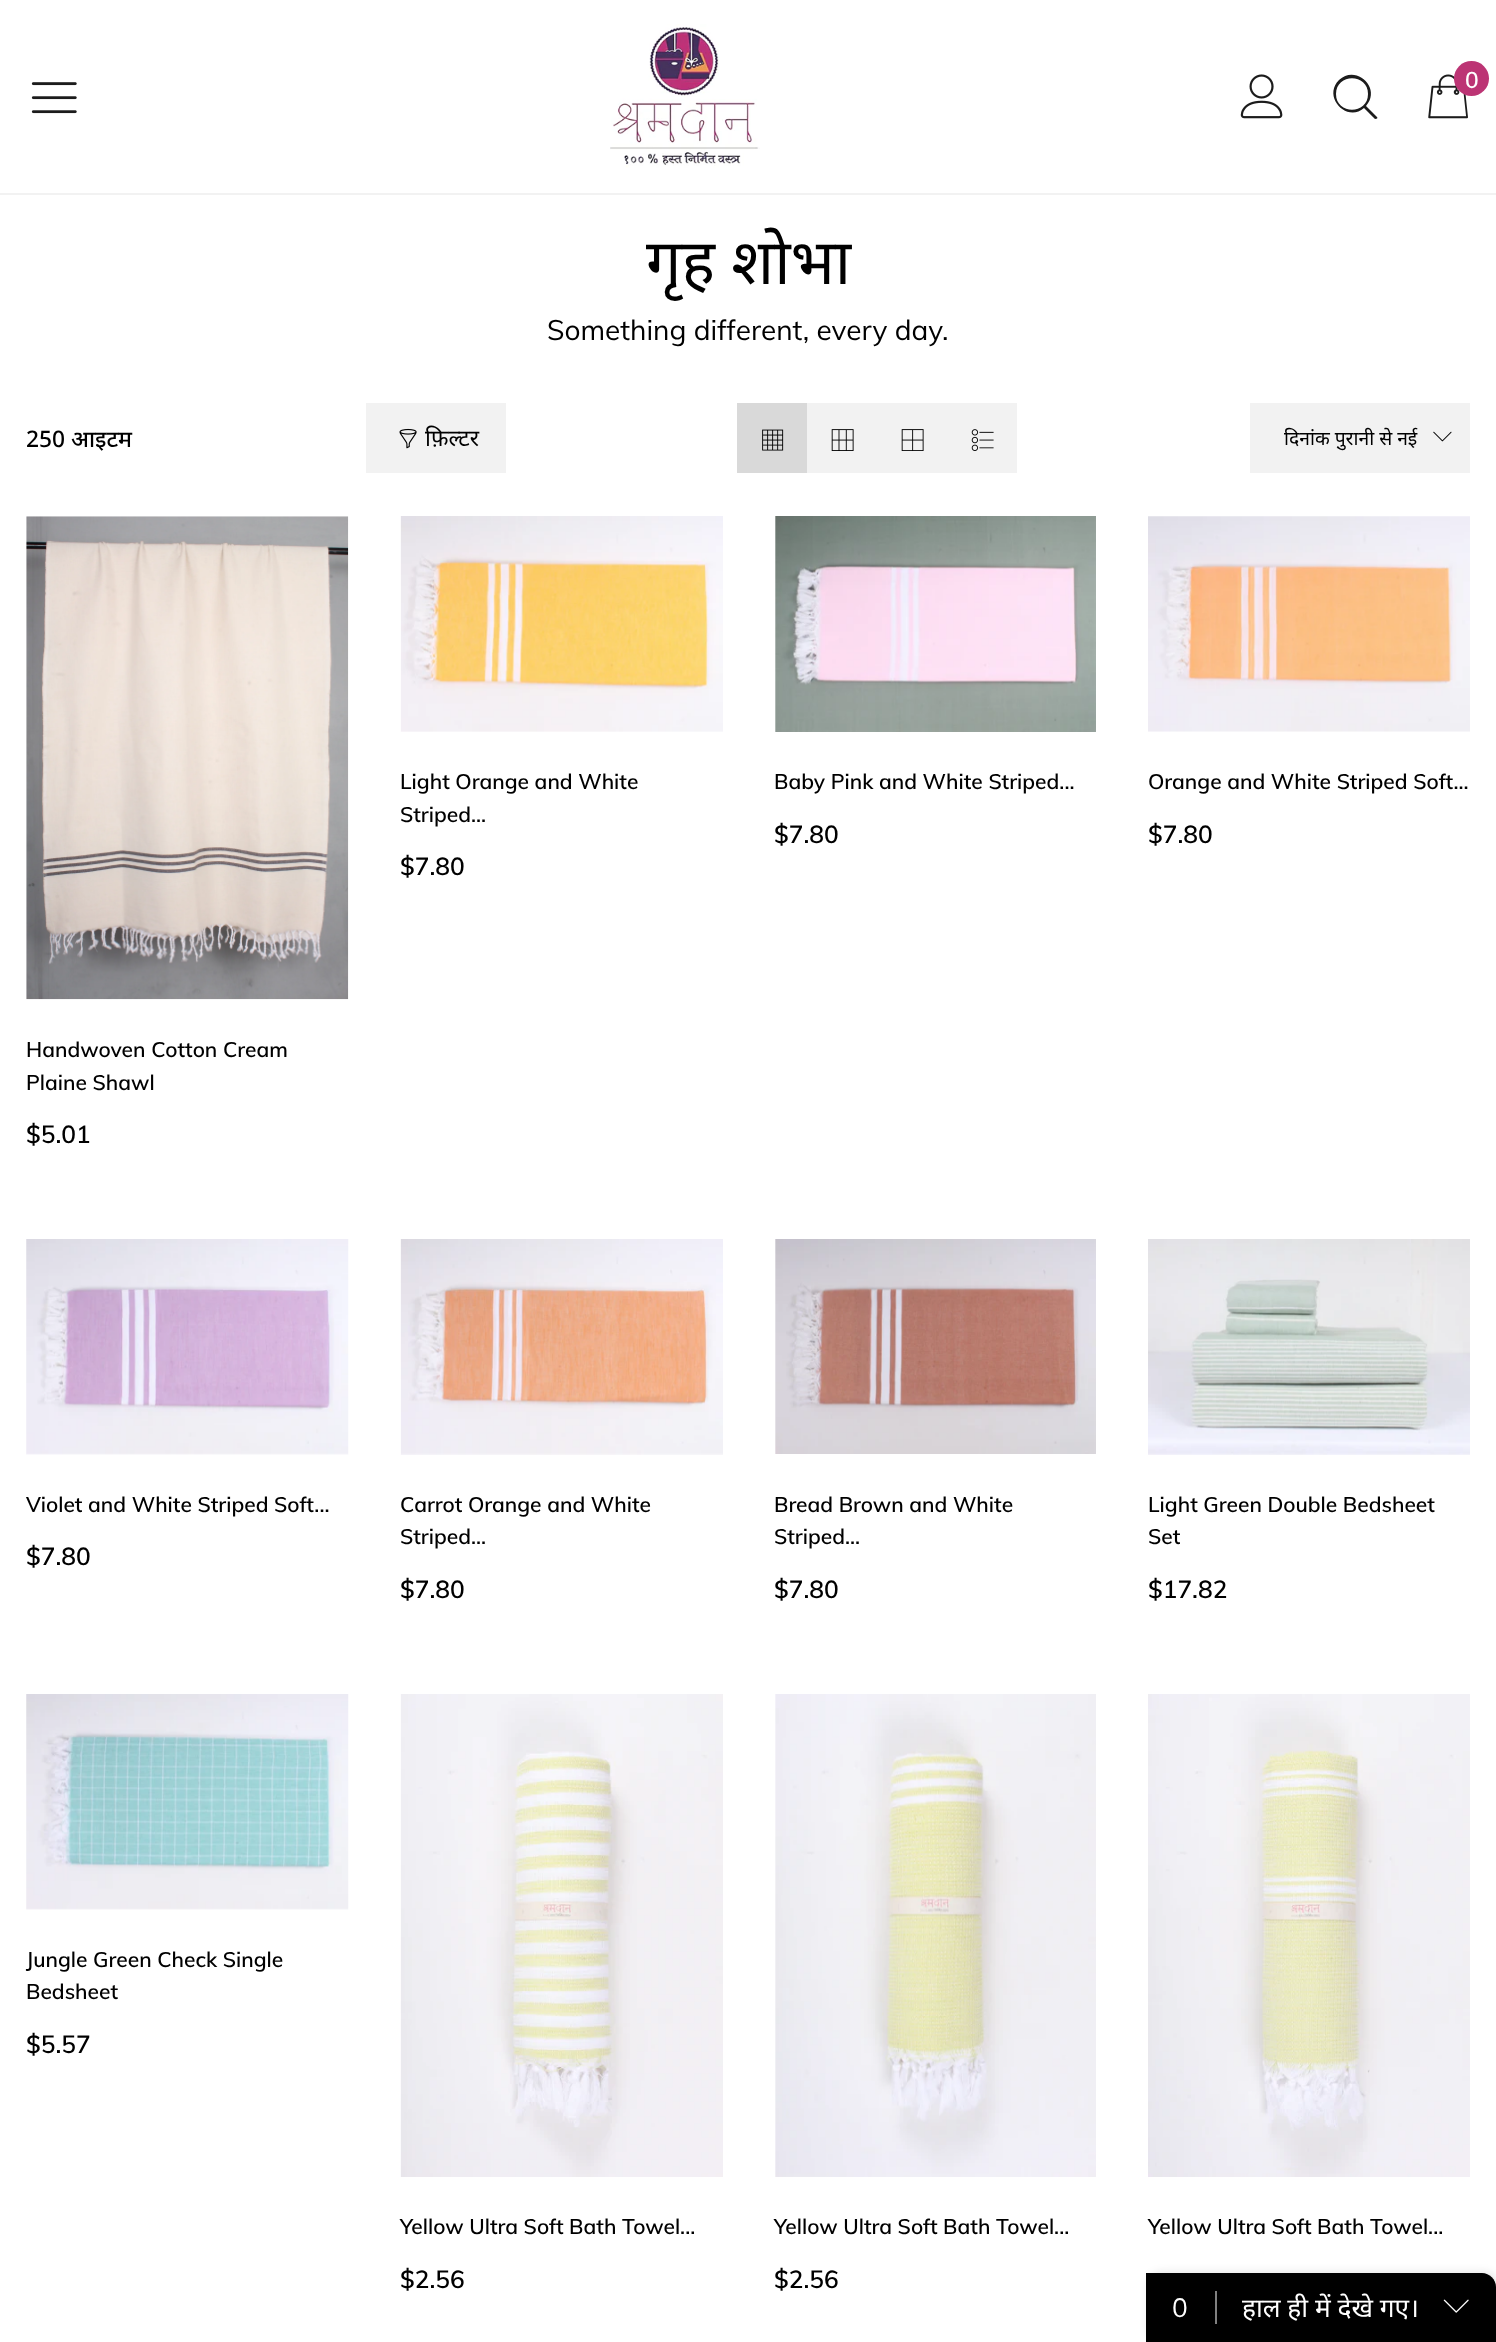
<svg xmlns="http://www.w3.org/2000/svg" width="1496" height="2342" viewBox="0 0 1496 2342">
  <rect width="100%" height="100%" fill="#fff"/>
  <path d="M0 193h1496v2H0z" fill="#f2f2f2"/>
  <image x="610" y="24" width="150" height="144" href="img/1.png"/>
  <image x="1240" y="74" width="43" height="45" href="img/2.png"/>
  <path d="M1377 117L1366 106C1382 88 1356 64 1339 80C1322 97 1347 123 1364 108L1375 119C1377 119 1378 118 1377 117ZM1336 94C1336 73 1368 73 1368 94C1368 115 1336 115 1336 94Z" fill="#1c1c1c"/>
  <image x="1428" y="74" width="40" height="45" href="img/3.png"/>
  <circle cx="1471.5" cy="78.5" r="17.5" fill="#bc3474"/>
  <image x="31" y="82" width="46" height="32" href="img/4.png"/>
  <path d="M366 403h140v70H366z" fill="#f2f2f2"/>
  <image x="399" y="428" width="18" height="21" href="img/5.png"/>
  <path d="M737 403h70v70H737z" fill="#d9d9d9"/>
  <image x="762" y="429" width="22" height="22" href="img/6.png"/>
  <path d="M807 403h210v70H807z" fill="#f2f2f2"/>
  <image x="831" y="429" width="23" height="22" href="img/7.png"/>
  <image x="901" y="429" width="23" height="22" href="img/8.png"/>
  <image x="971" y="429" width="23" height="22" href="img/9.png"/>
  <path d="M1250 403h220v70H1250z" fill="#f2f2f2"/>
  <image x="1433" y="431" width="19" height="11" href="img/10.png"/>
  <image x="400" y="516" width="323" height="216" href="img/11.png"/>
  <image x="775" y="516" width="321" height="216" href="img/12.png"/>
  <image x="1148" y="516" width="322" height="216" href="img/13.png"/>
  <image x="26" y="516" width="323" height="484" href="img/14.png"/>
  <image x="26" y="1239" width="323" height="216" href="img/15.png"/>
  <image x="400" y="1239" width="323" height="216" href="img/16.png"/>
  <image x="775" y="1239" width="321" height="215" href="img/17.png"/>
  <image x="1148" y="1239" width="322" height="216" href="img/18.png"/>
  <image x="26" y="1694" width="323" height="216" href="img/19.png"/>
  <image x="400" y="1694" width="323" height="483" href="img/20.png"/>
  <image x="775" y="1694" width="321" height="483" href="img/21.png"/>
  <image x="1148" y="1694" width="322" height="483" href="img/22.png"/>
  <rect x="1148" y="2272" width="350" height="70" rx="14" fill="#0000001a" filter="blur(4.5px)"/>
  <path d="M1146 2273H1482C1489.5 2273 1496 2279.5 1496 2287V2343H1146Z" fill="#000"/>
  <path d="M1215 2291h2v33H1215z" fill="#808080"/>
  <image x="1443" y="2299" width="26" height="14" href="img/23.png"/>
  <text x="1465" y="88" font-family="Muli" font-size="22.75" font-weight="600" fill="#fff">0</text>
  <text x="646" y="284" font-family="Noto Sans" font-size="63" fill="#000">गृह शोभा</text>
  <text x="547" y="340" font-family="Muli" font-size="28" fill="#000">Something different, every day.</text>
  <text x="26" y="447" font-family="Noto Sans" font-size="22.75" font-weight="500" fill="#000">250 आइटम</text>
  <text x="425" y="446" font-family="Noto Sans" font-size="22.75" fill="#000">फ़िल्टर</text>
  <text x="1284" y="445" font-family="Noto Sans" font-size="19.25" fill="#000">दिनांक पुरानी से नई</text>
  <g font-family="Muli" font-size="21" font-weight="600" fill="#000">
    <text x="400" y="789">Light Orange and White</text>
    <text x="400" y="822">Striped...</text>
  </g>
  <text x="400" y="875" font-family="Muli" font-size="24.5" font-weight="600" fill="#000">$7.80</text>
  <text x="774" y="789" font-family="Muli" font-size="21" font-weight="600" fill="#000">Baby Pink and White Striped...</text>
  <text x="774" y="843" font-family="Muli" font-size="24.5" font-weight="600" fill="#000">$7.80</text>
  <text x="1148" y="789" font-family="Muli" font-size="21" font-weight="600" fill="#000">Orange and White Striped Soft...</text>
  <text x="1148" y="843" font-family="Muli" font-size="24.5" font-weight="600" fill="#000">$7.80</text>
  <g font-family="Muli" font-size="21" font-weight="600" fill="#000">
    <text x="26" y="1057">Handwoven Cotton Cream</text>
    <text x="26" y="1090">Plaine Shawl</text>
  </g>
  <text x="26" y="1143" font-family="Muli" font-size="24.5" font-weight="600" fill="#000">$5.01</text>
  <text x="26" y="1512" font-family="Muli" font-size="21" font-weight="600" fill="#000">Violet and White Striped Soft...</text>
  <text x="26" y="1565" font-family="Muli" font-size="24.5" font-weight="600" fill="#000">$7.80</text>
  <g font-family="Muli" font-size="21" font-weight="600" fill="#000">
    <text x="400" y="1512">Carrot Orange and White</text>
    <text x="400" y="1544">Striped...</text>
  </g>
  <text x="400" y="1598" font-family="Muli" font-size="24.5" font-weight="600" fill="#000">$7.80</text>
  <g font-family="Muli" font-size="21" font-weight="600" fill="#000">
    <text x="774" y="1512">Bread Brown and White</text>
    <text x="774" y="1544">Striped...</text>
  </g>
  <text x="774" y="1598" font-family="Muli" font-size="24.5" font-weight="600" fill="#000">$7.80</text>
  <g font-family="Muli" font-size="21" font-weight="600" fill="#000">
    <text x="1148" y="1512">Light Green Double Bedsheet</text>
    <text x="1148" y="1544">Set</text>
  </g>
  <text x="1148" y="1598" font-family="Muli" font-size="24.5" font-weight="600" fill="#000">$17.82</text>
  <g font-family="Muli" font-size="21" font-weight="600" fill="#000">
    <text x="26" y="1967">Jungle Green Check Single</text>
    <text x="26" y="1999">Bedsheet</text>
  </g>
  <text x="26" y="2053" font-family="Muli" font-size="24.5" font-weight="600" fill="#000">$5.57</text>
  <text x="400" y="2234" font-family="Muli" font-size="21" font-weight="600" fill="#000">Yellow Ultra Soft Bath Towel...</text>
  <text x="400" y="2288" font-family="Muli" font-size="24.5" font-weight="600" fill="#000">$2.56</text>
  <text x="774" y="2234" font-family="Muli" font-size="21" font-weight="600" fill="#000">Yellow Ultra Soft Bath Towel...</text>
  <text x="774" y="2288" font-family="Muli" font-size="24.5" font-weight="600" fill="#000">$2.56</text>
  <text x="1148" y="2234" font-family="Muli" font-size="21" font-weight="600" fill="#000">Yellow Ultra Soft Bath Towel...</text>
  <text x="1172" y="2317" font-family="Muli" font-size="26.25" fill="#fff">0</text>
  <text x="1242" y="2317" font-family="Noto Sans" font-size="26.25" fill="#fff">हाल ही में देखे गए।</text>
</svg>
